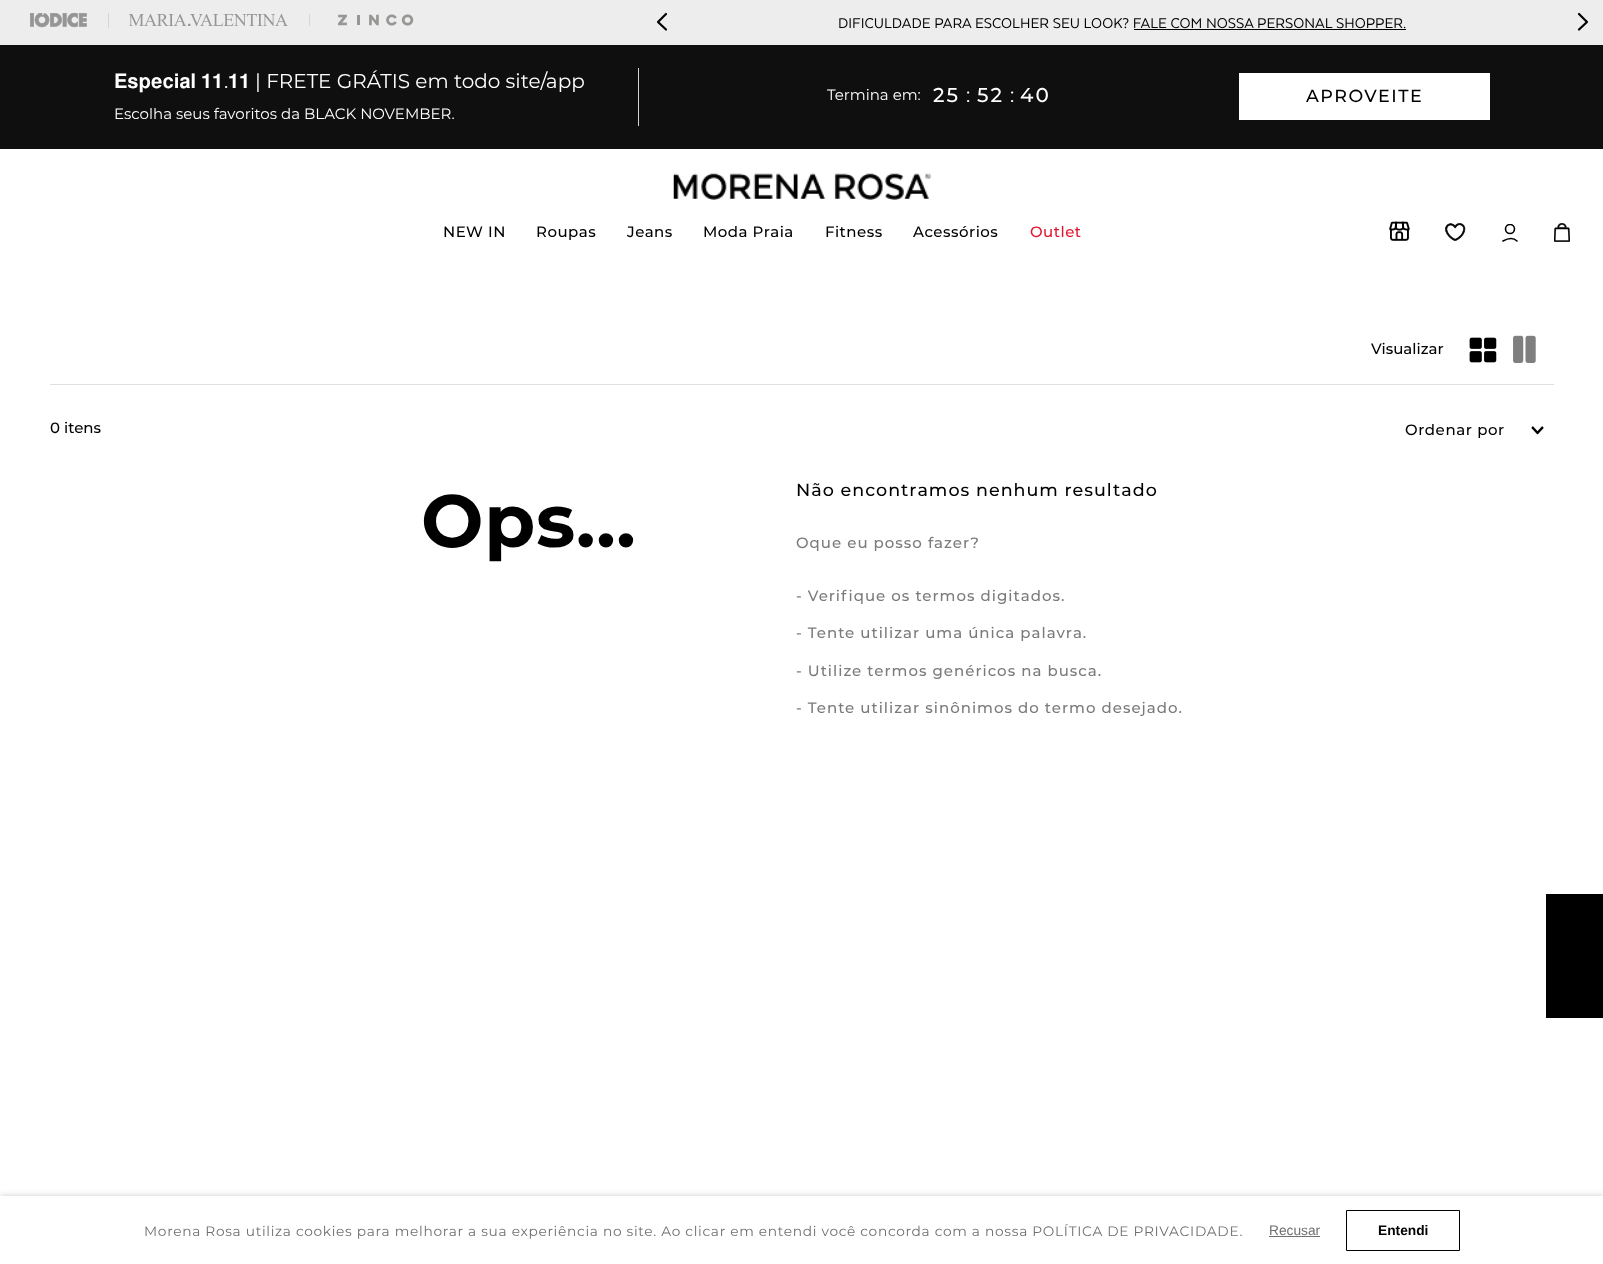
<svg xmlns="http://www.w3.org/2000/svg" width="1603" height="1264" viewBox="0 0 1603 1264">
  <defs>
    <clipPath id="clip1"><path d="M1501 224h18v19H1501z"/></clipPath>
  </defs>
  <rect width="100%" height="100%" fill="#fff"/>
  <path d="M0 0h1603v45H0z" fill="#ededed"/>
  <path d="M108 13h1v15H108z" fill="#d6d6d6"/>
  <image x="30" y="13" width="57" height="15" href="img/1.png"/>
  <path d="M309 14h1v12H309z" fill="#d6d6d6"/>
  <image x="129" y="14" width="159" height="12" href="img/2.png"/>
  <image x="338" y="14" width="76" height="12" href="img/3.png"/>
  <path d="M666 14L658 22L666 29.5" fill="none" stroke="#000" stroke-width="2.2" stroke-linecap="round" stroke-linejoin="round"/>
  <path d="M1134 29h272v1H1134z" fill="#000"/>
  <path d="M1579 29.5L1587 22L1579 14" fill="none" stroke="#000" stroke-width="2.2" stroke-linecap="round" stroke-linejoin="round"/>
  <path d="M0 45h1603v104H0z" fill="#100f0f"/>
  <path d="M638 68h1v58H638z" fill="#d4d4d4"/>
  <path d="M1239 73h251v47H1239z" fill="#fff"/>
  <image x="673" y="173" width="259" height="27" href="img/4.png"/>
  <image x="1389" y="221" width="21" height="20" href="img/5.png"/>
  <image x="1445" y="223" width="21" height="18" href="img/6.png"/>
  <path d="M1517 241C1513 237 1507.5 238.5 1503 241" fill="none" stroke="#000" stroke-width="1.6" stroke-linecap="round"/>
  <g clip-path="url(#clip1)">
    <circle cx="1510" cy="229" r="4.5" fill="none" stroke="#000" stroke-width="1.6"/>
  </g>
  <image x="1554" y="223" width="16" height="19" href="img/7.png"/>
  <path d="M50 384h1504v1H50z" fill="#e4dfdf"/>
  <image x="1469" y="337" width="28" height="26" href="img/8.png"/>
  <image x="1513" y="335" width="23" height="28" href="img/9.png"/>
  <image x="1531" y="426" width="13" height="9" href="img/10.png"/>
  <path d="M1546 894h57v124H1546z" fill="#000"/>
  <path d="M0 1196h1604v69H0z" fill="#00000033" filter="blur(3px)"/>
  <path d="M0 1196h1603v68H0z" fill="#fff"/>
  <path d="M1269 1236h51v1H1269z" fill="#707070"/>
  <path d="M1346.5 1210.5h113v40H1346.5z" fill="none" stroke="#000"/>
  <text x="838" y="28" font-family="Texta" font-size="16.25" fill="#000">DIFICULDADE PARA ESCOLHER SEU LOOK? FALE COM NOSSA PERSONAL SHOPPER.</text>
  <text x="114" y="88" font-family="FreeSans" font-size="20" fill="#fff">𝐄𝐬𝐩𝐞𝐜𝐢𝐚𝐥 𝟏𝟏</text>
  <text x="224" y="88" font-family="Montserrat" font-size="20" fill="#fff">.</text>
  <text x="228" y="88" font-family="FreeSans" font-size="20" fill="#fff">𝟏𝟏</text>
  <text x="255" y="88" font-family="Montserrat" font-size="20" fill="#fff">| FRETE GRÁTIS em todo site/app</text>
  <g font-family="Montserrat" font-size="15" fill="#fff">
    <text x="114" y="119">Escolha seus favoritos da BLACK NOVEMBER.</text>
    <text x="827" y="100">Termina em:</text>
  </g>
  <text x="933" y="102" font-family="Montserrat" font-size="20" font-weight="500" letter-spacing="2" fill="#fff">25</text>
  <text x="966" y="102" font-family="Montserrat" font-size="20" fill="#fff">:</text>
  <text x="977" y="102" font-family="Montserrat" font-size="20" font-weight="500" letter-spacing="2" fill="#fff">52</text>
  <text x="1010" y="102" font-family="Montserrat" font-size="20" fill="#fff">:</text>
  <text x="1020" y="102" font-family="Montserrat" font-size="20" font-weight="500" letter-spacing="2" fill="#fff">40</text>
  <text x="1306" y="102" font-family="Montserrat" font-size="17.5" font-weight="500" letter-spacing="1.5" fill="#000">APROVEITE</text>
  <g font-family="Montserrat" font-size="15" font-weight="500" letter-spacing="0.5" fill="#000">
    <text x="443" y="237">NEW IN</text>
    <text x="536" y="237">Roupas</text>
    <text x="627" y="237">Jeans</text>
    <text x="703" y="237">Moda Praia</text>
    <text x="825" y="237">Fitness</text>
    <text x="913" y="237">Acessórios</text>
  </g>
  <text x="1030" y="237" font-family="Montserrat" font-size="15" font-weight="500" letter-spacing="0.5" fill="#e31631">Outlet</text>
  <g font-family="Montserrat" font-size="15" font-weight="500" fill="#000">
    <text x="1371" y="354">Visualizar</text>
    <text x="50" y="433">0 itens</text>
  </g>
  <text x="1405" y="435" font-family="Montserrat" font-size="15" font-weight="500" letter-spacing="0.6" fill="#000">Ordenar por</text>
  <text x="421" y="547" font-family="Montserrat" font-size="74" font-weight="bold" letter-spacing="0.75" fill="#000">Ops...</text>
  <text x="796" y="496" font-family="Montserrat" font-size="17.5" font-weight="500" letter-spacing="1" fill="#000">Não encontramos nenhum resultado</text>
  <g font-family="Montserrat" font-size="15" font-weight="500" letter-spacing="1" fill="#7b7b7b">
    <text x="796" y="548">Oque eu posso fazer?</text>
    <text x="796" y="601">- Verifique os termos digitados.</text>
    <text x="796" y="638">- Tente utilizar uma única palavra.</text>
    <text x="796" y="676">- Utilize termos genéricos na busca.</text>
    <text x="796" y="713">- Tente utilizar sinônimos do termo desejado.</text>
  </g>
  <text x="144" y="1236" font-family="Montserrat" font-size="13.75" letter-spacing="0.69" fill="#707070">Morena Rosa utiliza cookies para melhorar a sua experiência no site. Ao clicar em entendi você concorda com a nossa POLÍTICA DE PRIVACIDADE.</text>
  <text x="1269" y="1235" font-family="Liberation Sans" font-size="13.75" fill="#707070">Recusar</text>
  <text x="1378" y="1235" font-family="Liberation Sans" font-size="13.75" font-weight="bold" fill="#000">Entendi</text>
</svg>
